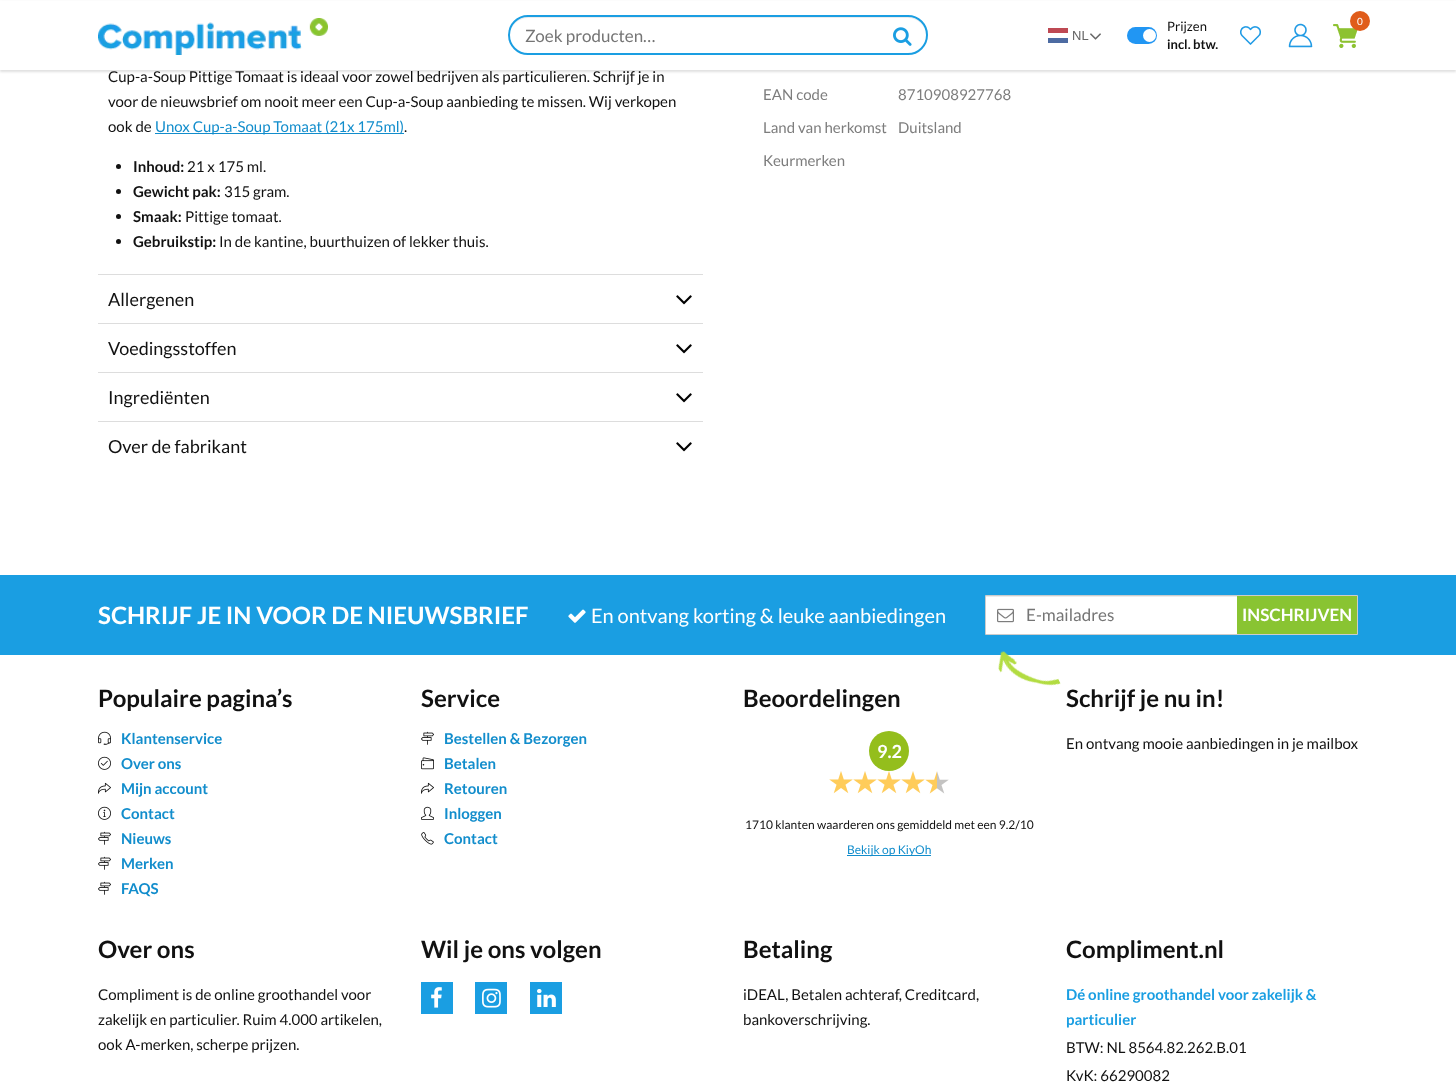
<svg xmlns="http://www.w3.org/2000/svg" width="1456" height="1089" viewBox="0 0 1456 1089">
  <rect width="100%" height="100%" fill="#fff"/>
  <path d="M0 2h1456v70H0z" fill="#0000001f" filter="blur(1px)"/>
  <path d="M0 1h1456v69H0z" fill="#fff"/>
  <image x="98" y="18" width="230" height="37" href="img/1.png"/>
  <path d="M528 18H908C918 18 926 26 926 35C926 25 918 17 908 17H528C518 17 510 25 510 35C510 26 518 18 528 18Z" fill="#ececec"/>
  <rect x="509" y="16" width="418" height="38" rx="19" fill="none" stroke="#1a9ee2" stroke-width="2"/>
  <image x="893" y="27" width="19" height="19" href="img/2.png"/>
  <path d="M1048 38h20v5H1048z" fill="#4d6ba2"/>
  <path d="M1048 28h20v5H1048z" fill="#be4953"/>
  <image x="1090" y="33" width="11" height="7" href="img/3.png"/>
  <rect x="1127" y="27" width="30" height="17" rx="8.5" fill="#2196f3"/>
  <circle cx="1149.5" cy="35.5" r="6.5" fill="#fff"/>
  <image x="1240" y="26" width="21" height="19" href="img/4.png"/>
  <image x="1288" y="23" width="25" height="25" href="img/5.png"/>
  <image x="1333" y="24" width="25" height="24" href="img/6.png"/>
  <circle cx="1360" cy="21" r="10" fill="#e05c1a"/>
  <path d="M155 133h249v1H155z" fill="#128dcc"/>
  <circle cx="118.5" cy="166.5" r="2.5" fill="#111"/>
  <circle cx="118.5" cy="191.5" r="2.5" fill="#111"/>
  <circle cx="118.5" cy="216.5" r="2.5" fill="#111"/>
  <circle cx="118.5" cy="241.5" r="2.5" fill="#111"/>
  <path d="M98 274h605v1H98z" fill="#ddd"/>
  <image x="676" y="295" width="16" height="10" href="img/7.png"/>
  <path d="M98 323h605v1H98z" fill="#ddd"/>
  <image x="676" y="344" width="16" height="10" href="img/7.png"/>
  <path d="M98 372h605v1H98z" fill="#ddd"/>
  <image x="676" y="393" width="16" height="10" href="img/7.png"/>
  <path d="M98 421h605v1H98z" fill="#ddd"/>
  <image x="676" y="442" width="16" height="10" href="img/7.png"/>
  <path d="M0 575h1456v80H0z" fill="#1a9ee2"/>
  <image x="568" y="609" width="18" height="14" href="img/8.png"/>
  <path d="M986 597h251v37H986z" fill="#fff"/>
  <path d="M986 596h251v1H986z" fill="#ececec"/>
  <path d="M985.5 595.5h372v39H985.5z" fill="none" stroke="#ccc"/>
  <image x="997" y="608" width="17" height="15" href="img/9.png"/>
  <path d="M1237 596h120v38H1237z" fill="#89c432"/>
  <image x="98" y="731" width="13" height="14" href="img/10.png"/>
  <image x="98" y="756" width="13" height="14" href="img/11.png"/>
  <image x="98" y="782" width="13" height="12" href="img/12.png"/>
  <image x="98" y="806" width="13" height="14" href="img/13.png"/>
  <image x="98" y="831" width="13" height="14" href="img/14.png"/>
  <image x="98" y="856" width="13" height="14" href="img/14.png"/>
  <image x="98" y="881" width="13" height="14" href="img/14.png"/>
  <image x="421" y="731" width="13" height="14" href="img/14.png"/>
  <image x="421" y="757" width="13" height="13" href="img/15.png"/>
  <image x="421" y="782" width="13" height="12" href="img/12.png"/>
  <image x="421" y="806" width="13" height="14" href="img/16.png"/>
  <image x="421" y="832" width="13" height="13" href="img/17.png"/>
  <circle cx="889" cy="751" r="20" fill="#94be1c"/>
  <image x="829" y="771" width="24" height="23" href="img/18.png"/>
  <image x="853" y="771" width="24" height="23" href="img/18.png"/>
  <image x="877" y="771" width="24" height="23" href="img/18.png"/>
  <image x="901" y="771" width="24" height="23" href="img/18.png"/>
  <image x="925" y="771" width="24" height="23" href="img/19.png"/>
  <path d="M847 855h84v1H847z" fill="#128dcc"/>
  <image x="998" y="651" width="63" height="35" href="img/20.png"/>
  <path d="M421 982h32v32H421z" fill="#1a9ee2"/>
  <image x="431" y="987" width="11" height="21" href="img/21.png"/>
  <path d="M475 982h32v32H475z" fill="#1a9ee2"/>
  <image x="482" y="988" width="19" height="20" href="img/22.png"/>
  <path d="M530 982h32v32H530z" fill="#1a9ee2"/>
  <image x="537" y="989" width="19" height="18" href="img/23.png"/>
  <text x="525" y="42" font-family="Lato" font-size="17" fill="#757575">Zoek producten…</text>
  <text x="1072" y="40" font-family="Liberation Sans" font-size="13" fill="#666">NL</text>
  <text x="1167" y="31" font-family="Lato" font-size="13" fill="#111">Prijzen</text>
  <text x="1167" y="49" font-family="Lato" font-size="13" font-weight="bold" fill="#111">incl. btw.</text>
  <text x="1357" y="25" font-family="Lato" font-size="10" fill="#fff">0</text>
  <g font-family="Lato" font-size="15" fill="#111">
    <text x="108" y="82">Cup-a-Soup Pittige Tomaat is ideaal voor zowel bedrijven als particulieren. Schrijf je in</text>
    <text x="108" y="107">voor de nieuwsbrief om nooit meer een Cup-a-Soup aanbieding te missen. Wij verkopen</text>
    <text x="108" y="132">ook de</text>
  </g>
  <text x="155" y="132" font-family="Lato" font-size="15" fill="#128dcc">Unox Cup-a-Soup Tomaat (21x 175ml)</text>
  <text x="404" y="132" font-family="Lato" font-size="15" fill="#111">.</text>
  <text x="133" y="172" font-family="Lato" font-size="15" font-weight="bold" fill="#111">Inhoud:</text>
  <text x="187" y="172" font-family="Lato" font-size="15" fill="#111">21 x 175 ml.</text>
  <text x="133" y="197" font-family="Lato" font-size="15" font-weight="bold" fill="#111">Gewicht pak:</text>
  <text x="224" y="197" font-family="Lato" font-size="15" fill="#111">315 gram.</text>
  <text x="133" y="222" font-family="Lato" font-size="15" font-weight="bold" fill="#111">Smaak:</text>
  <text x="185" y="222" font-family="Lato" font-size="15" fill="#111">Pittige tomaat.</text>
  <text x="133" y="247" font-family="Lato" font-size="15" font-weight="bold" fill="#111">Gebruikstip:</text>
  <text x="219" y="247" font-family="Lato" font-size="15" fill="#111">In de kantine, buurthuizen of lekker thuis.</text>
  <g font-family="Lato" font-size="18" fill="#111">
    <text x="108" y="306">Allergenen</text>
    <text x="108" y="355">Voedingsstoffen</text>
    <text x="108" y="404">Ingrediënten</text>
    <text x="108" y="453">Over de fabrikant</text>
  </g>
  <g font-family="Lato" font-size="15" fill="#7d7d7d">
    <text x="763" y="100">EAN code</text>
    <text x="898" y="100">8710908927768</text>
    <text x="763" y="133">Land van herkomst</text>
    <text x="898" y="133">Duitsland</text>
    <text x="763" y="166">Keurmerken</text>
  </g>
  <text x="98" y="624" font-family="Lato" font-size="24" font-weight="bold" fill="#fff">SCHRIJF JE IN VOOR DE NIEUWSBRIEF</text>
  <text x="591" y="623" font-family="Lato" font-size="20" fill="#fff">En ontvang korting &amp; leuke aanbiedingen</text>
  <text x="1026" y="621" font-family="Lato" font-size="17" fill="#757575">E-mailadres</text>
  <text x="1242" y="621" font-family="Lato" font-size="17" font-weight="bold" fill="#fff">INSCHRIJVEN</text>
  <text x="98" y="707" font-family="Lato" font-size="24" font-weight="bold" fill="#111">Populaire pagina’s</text>
  <g font-family="Lato" font-size="15" font-weight="bold" fill="#128dcc">
    <text x="121" y="744">Klantenservice</text>
    <text x="121" y="769">Over ons</text>
    <text x="121" y="794">Mijn account</text>
    <text x="121" y="819">Contact</text>
    <text x="121" y="844">Nieuws</text>
    <text x="121" y="869">Merken</text>
    <text x="121" y="894">FAQS</text>
  </g>
  <text x="421" y="707" font-family="Lato" font-size="24" font-weight="bold" fill="#111">Service</text>
  <g font-family="Lato" font-size="15" font-weight="bold" fill="#128dcc">
    <text x="444" y="744">Bestellen &amp; Bezorgen</text>
    <text x="444" y="769">Betalen</text>
    <text x="444" y="794">Retouren</text>
    <text x="444" y="819">Inloggen</text>
    <text x="444" y="844">Contact</text>
  </g>
  <text x="743" y="707" font-family="Lato" font-size="24" font-weight="bold" fill="#111">Beoordelingen</text>
  <text x="877" y="758" font-family="Lato" font-size="18" font-weight="bold" fill="#fff">9.2</text>
  <text x="745" y="829" font-family="Lato" font-size="12" fill="#111">1710 klanten waarderen ons gemiddeld met een 9.2/10</text>
  <text x="847" y="854" font-family="Lato" font-size="12" fill="#128dcc">Bekijk op KiyOh</text>
  <text x="1066" y="707" font-family="Lato" font-size="24" font-weight="bold" fill="#111">Schrijf je nu in!</text>
  <text x="1066" y="749" font-family="Lato" font-size="15" fill="#111">En ontvang mooie aanbiedingen in je mailbox</text>
  <text x="98" y="958" font-family="Lato" font-size="24" font-weight="bold" fill="#111">Over ons</text>
  <g font-family="Lato" font-size="15" fill="#111">
    <text x="98" y="1000">Compliment is de online groothandel voor</text>
    <text x="98" y="1025">zakelijk en particulier. Ruim 4.000 artikelen,</text>
    <text x="98" y="1050">ook A-merken, scherpe prijzen.</text>
  </g>
  <g font-family="Lato" font-size="24" font-weight="bold" fill="#111">
    <text x="421" y="958">Wil je ons volgen</text>
    <text x="743" y="958">Betaling</text>
  </g>
  <g font-family="Lato" font-size="15" fill="#111">
    <text x="743" y="1000">iDEAL, Betalen achteraf, Creditcard,</text>
    <text x="743" y="1025">bankoverschrijving.</text>
  </g>
  <text x="1066" y="958" font-family="Lato" font-size="24" font-weight="bold" fill="#111">Compliment.nl</text>
  <g font-family="Lato" font-size="15" font-weight="bold" fill="#1a9ee2">
    <text x="1066" y="1000">Dé online groothandel voor zakelijk &amp;</text>
    <text x="1066" y="1025">particulier</text>
  </g>
  <g font-family="Lato" font-size="15" fill="#111">
    <text x="1066" y="1053">BTW: NL 8564.82.262.B.01</text>
    <text x="1066" y="1081">KvK: 66290082</text>
  </g>
</svg>
